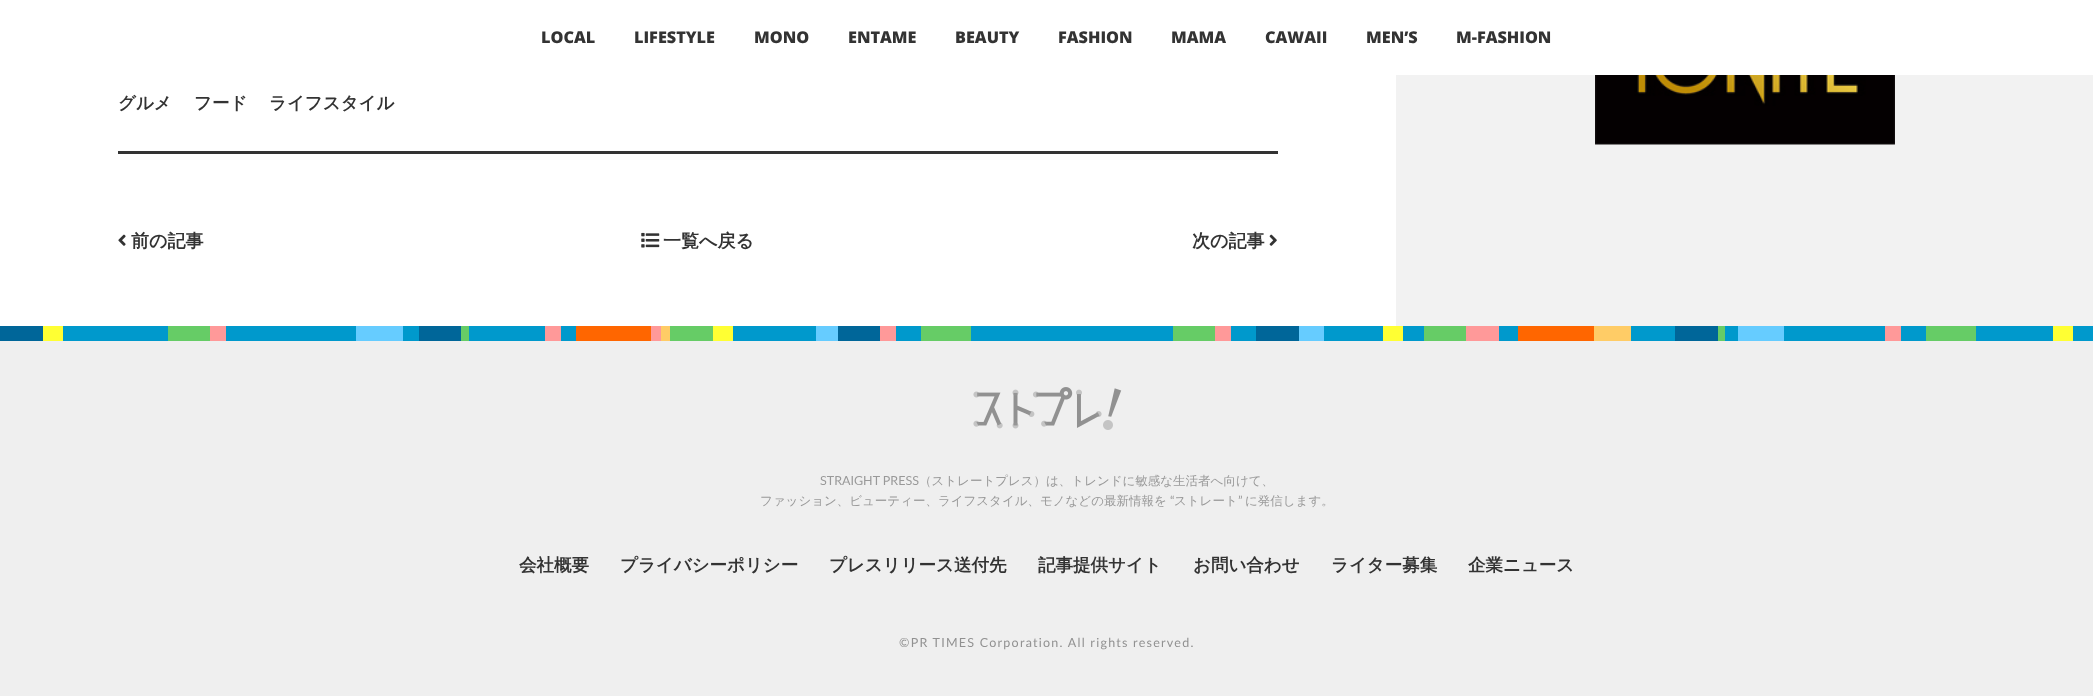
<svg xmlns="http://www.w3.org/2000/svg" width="2093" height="696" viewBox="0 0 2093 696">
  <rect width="100%" height="100%" fill="#09c"/>
  <path d="M0 0h2093v75H0z" fill="#fff"/>
  <path d="M0 75h1396v251H0z" fill="#fff"/>
  <path d="M118 151h1160v3H118z" fill="#333"/>
  <image x="118" y="234" width="8" height="12" href="img/1.png"/>
  <image x="641" y="232" width="19" height="16" href="img/2.png"/>
  <image x="1269" y="234" width="8" height="12" href="img/3.png"/>
  <path d="M1396 75h697v251H1396z" fill="#f2f2f2"/>
  <image x="1595" y="75" width="300" height="70" href="img/4.png"/>
  <path d="M661 326h9v15H661z" fill="#fc6"/>
  <path d="M1594 326h37v15H1594z" fill="#fc6"/>
  <path d="M168 326h42v15H168z" fill="#6c6"/>
  <path d="M461 326h8v15H461z" fill="#6c6"/>
  <path d="M670 326h43v15H670z" fill="#6c6"/>
  <path d="M921 326h50v15H921z" fill="#6c6"/>
  <path d="M1173 326h42v15H1173z" fill="#6c6"/>
  <path d="M1424 326h42v15H1424z" fill="#6c6"/>
  <path d="M1718 326h7v15H1718z" fill="#6c6"/>
  <path d="M1926 326h50v15H1926z" fill="#6c6"/>
  <path d="M356 326h47v15H356z" fill="#6cf"/>
  <path d="M816 326h22v15H816z" fill="#6cf"/>
  <path d="M1299 326h25v15H1299z" fill="#6cf"/>
  <path d="M1738 326h46v15H1738z" fill="#6cf"/>
  <path d="M651 326h10v15H651z" fill="#f99"/>
  <path d="M1466 326h33v15H1466z" fill="#f99"/>
  <path d="M0 326h43v15H0z" fill="#069"/>
  <path d="M419 326h42v15H419z" fill="#069"/>
  <path d="M838 326h42v15H838z" fill="#069"/>
  <path d="M1256 326h43v15H1256z" fill="#069"/>
  <path d="M1675 326h43v15H1675z" fill="#069"/>
  <path d="M210 326h16v15H210z" fill="#f99"/>
  <path d="M545 326h16v15H545z" fill="#f99"/>
  <path d="M880 326h16v15H880z" fill="#f99"/>
  <path d="M1215 326h16v15H1215z" fill="#f99"/>
  <path d="M1885 326h16v15H1885z" fill="#f99"/>
  <path d="M43 326h20v15H43z" fill="#ff3"/>
  <path d="M713 326h20v15H713z" fill="#ff3"/>
  <path d="M1383 326h20v15H1383z" fill="#ff3"/>
  <path d="M2053 326h20v15H2053z" fill="#ff3"/>
  <path d="M576 326h75v15H576z" fill="#f60"/>
  <path d="M1518 326h76v15H1518z" fill="#f60"/>
  <path d="M0 341h2093v355H0z" fill="#efefef"/>
  <image x="973" y="387" width="149" height="43" href="img/5.png"/>
  <g font-family="Open Sans" font-size="16.25" font-weight="800" fill="#333">
    <text x="541" y="43">LOCAL</text>
    <text x="634" y="43">LIFESTYLE</text>
    <text x="754" y="43">MONO</text>
    <text x="848" y="43">ENTAME</text>
    <text x="955" y="43">BEAUTY</text>
    <text x="1058" y="43">FASHION</text>
    <text x="1171" y="43">MAMA</text>
    <text x="1265" y="43">CAWAII</text>
    <text x="1366" y="43">MEN’S</text>
    <text x="1456" y="43">M-FASHION</text>
  </g>
  <g font-family="WenQuanYi Zen Hei" font-size="17.5" font-weight="bold" fill="#333">
    <text x="118" y="109">グルメ</text>
    <text x="194" y="109">フード</text>
    <text x="269" y="109">ライフスタイル</text>
  </g>
  <g font-family="WenQuanYi Zen Hei" font-size="18" font-weight="bold" fill="#333">
    <text x="131" y="247">前の記事</text>
    <text x="663" y="247">一覧へ戻る</text>
    <text x="1192" y="247">次の記事</text>
  </g>
  <text x="820" y="485" font-family="Lato" font-size="12.5" fill="#999">STRAIGHT PRESS</text>
  <g font-family="WenQuanYi Zen Hei" font-size="12.5" font-weight="500" fill="#999">
    <text x="919" y="485">（ストレートプレス）は、トレンドに敏感な生活者へ向けて、</text>
    <text x="760" y="505">ファッション、ビューティー、ライフスタイル、モノなどの最新情報を</text>
  </g>
  <text x="1170" y="505" font-family="Lato" font-size="12.5" fill="#999">“</text>
  <text x="1174" y="505" font-family="WenQuanYi Zen Hei" font-size="12.5" font-weight="500" fill="#999">ストレート</text>
  <text x="1238" y="505" font-family="Lato" font-size="12.5" fill="#999">”</text>
  <text x="1245" y="505" font-family="WenQuanYi Zen Hei" font-size="12.5" font-weight="500" fill="#999">に発信します。</text>
  <g font-family="WenQuanYi Zen Hei" font-size="17.5" font-weight="bold" fill="#333">
    <text x="519" y="571">会社概要</text>
    <text x="620" y="571">プライバシーポリシー</text>
    <text x="829" y="571">プレスリリース送付先</text>
    <text x="1038" y="571">記事提供サイト</text>
    <text x="1193" y="571">お問い合わせ</text>
    <text x="1331" y="571">ライター募集</text>
    <text x="1468" y="571">企業ニュース</text>
  </g>
  <text x="899" y="647" font-family="Lato" font-size="12.5" letter-spacing="1.25" fill="#919191">©PR TIMES Corporation. All rights reserved.</text>
</svg>
